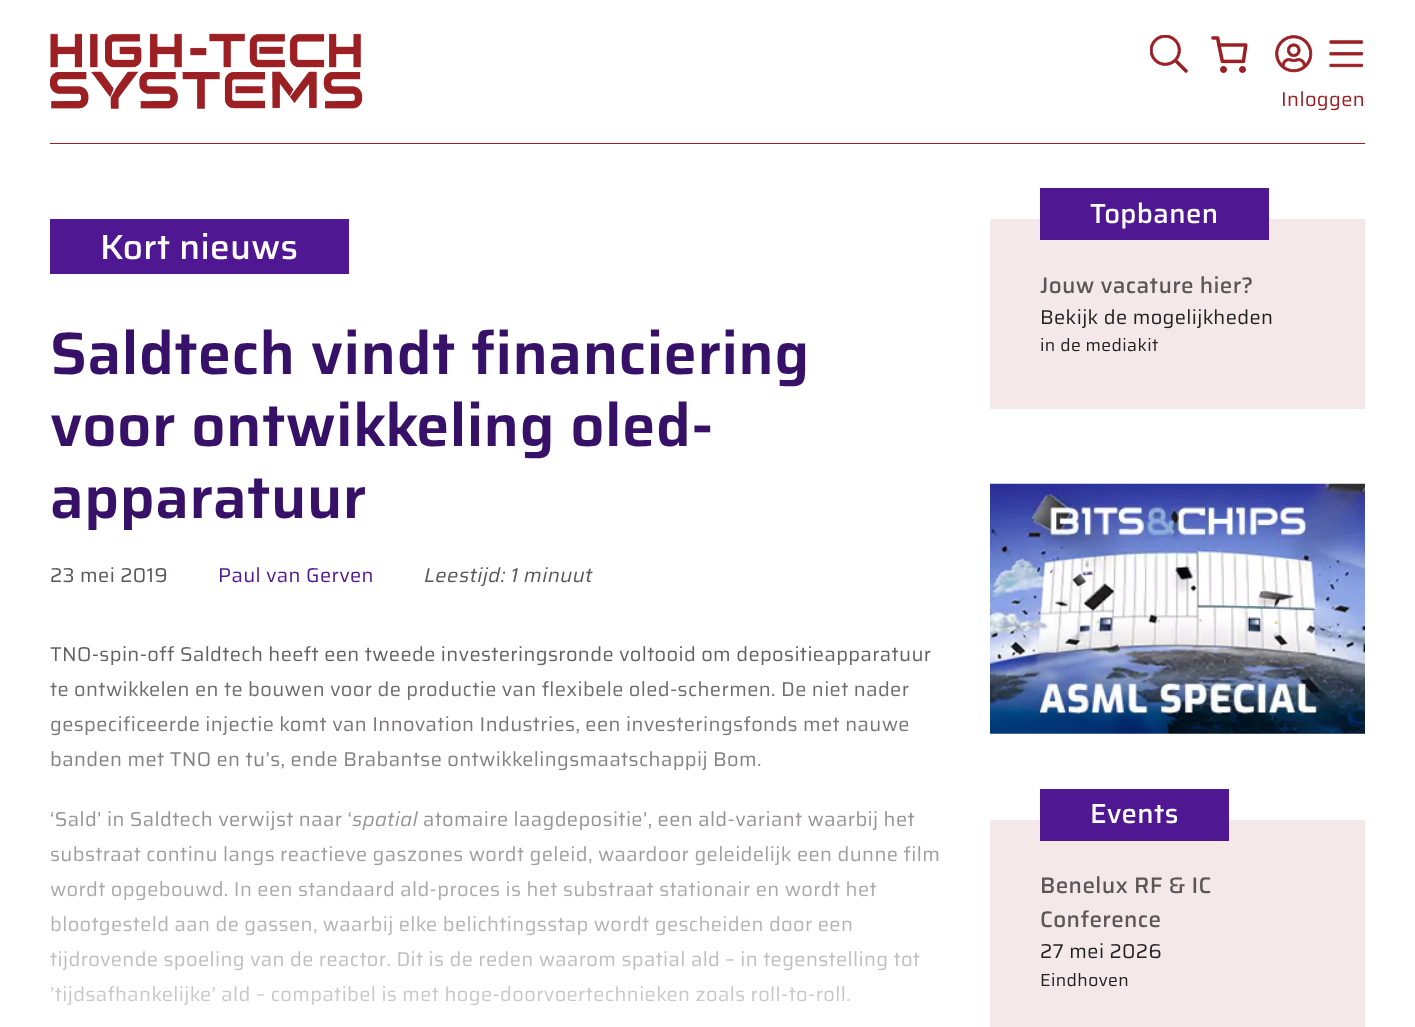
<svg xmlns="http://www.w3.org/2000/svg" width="1415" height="1027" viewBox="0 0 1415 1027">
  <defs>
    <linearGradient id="g1" gradientUnits="userSpaceOnUse" x1="495" y1="619" x2="495" y2="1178"><stop offset="0" stop-color="#fff" stop-opacity="0"/><stop offset="1" stop-color="#fff"/></linearGradient>
  </defs>
  <rect width="100%" height="100%" fill="#fff"/>
  <image x="50" y="33" width="313" height="76" href="img/1.png"/>
  <image x="1150" y="35" width="38" height="38" href="img/2.png"/>
  <image x="1211" y="36" width="37" height="37" href="img/3.png"/>
  <image x="1275" y="35" width="38" height="38" href="img/4.png"/>
  <image x="1329" y="40" width="34" height="28" href="img/5.png"/>
  <path d="M50 143h1315v1H50z" fill="#9b1f23"/>
  <path d="M50 219h299v55H50z" fill="#501793"/>
  <path d="M990 219h375v190H990z" fill="#f5e8e9"/>
  <path d="M1040 188h229v52H1040z" fill="#501793"/>
  <image x="990" y="483" width="375" height="251" href="img/6.png"/>
  <path d="M990 820h375v207H990z" fill="#f5e8e9"/>
  <path d="M1040 789h189v52H1040z" fill="#501793"/>
  <text x="1281" y="106" font-family="Saira" font-size="20" letter-spacing="0.38" fill="#9b1f23">Inloggen</text>
  <text x="100" y="259" font-family="Saira" font-size="35" font-weight="500" letter-spacing="0.38" fill="#fff">Kort nieuws</text>
  <g font-family="Saira" font-size="60" font-weight="600" letter-spacing="0.38" fill="#361167">
    <text x="50" y="374">Saldtech vindt financiering</text>
    <text x="50" y="446">voor ontwikkeling oled-</text>
    <text x="50" y="518">apparatuur</text>
  </g>
  <text x="50" y="582" font-family="Saira" font-size="20" letter-spacing="0.38" fill="#5c5757">23 mei 2019</text>
  <text x="218" y="582" font-family="Saira" font-size="20" letter-spacing="0.38" fill="#501793">Paul van Gerven</text>
  <text x="424" y="582" font-family="Saira" font-size="20" font-style="italic" letter-spacing="0.38" fill="#5c5757">Leestijd: 1 minuut</text>
  <g font-family="Saira" font-size="20" letter-spacing="0.38" fill="#5c5757">
    <text x="50" y="661">TNO-spin-off Saldtech heeft een tweede investeringsronde voltooid om depositieapparatuur</text>
    <text x="50" y="696">te ontwikkelen en te bouwen voor de productie van flexibele oled-schermen. De niet nader</text>
    <text x="50" y="731">gespecificeerde injectie komt van Innovation Industries, een investeringsfonds met nauwe</text>
    <text x="50" y="766">banden met TNO en tu’s, ende Brabantse ontwikkelingsmaatschappij Bom.</text>
    <text x="50" y="826">‘Sald’ in Saldtech verwijst naar ‘</text>
  </g>
  <text x="352" y="826" font-family="Saira" font-size="20" font-style="italic" letter-spacing="0.38" fill="#5c5757">spatial</text>
  <g font-family="Saira" font-size="20" letter-spacing="0.38" fill="#5c5757">
    <text x="423" y="826">atomaire laagdepositie’, een ald-variant waarbij het</text>
    <text x="50" y="861">substraat continu langs reactieve gaszones wordt geleid, waardoor geleidelijk een dunne film</text>
    <text x="50" y="896">wordt opgebouwd. In een standaard ald-proces is het substraat stationair en wordt het</text>
    <text x="50" y="931">blootgesteld aan de gassen, waarbij elke belichtingsstap wordt gescheiden door een</text>
    <text x="50" y="966">tijdrovende spoeling van de reactor. Dit is de reden waarom spatial ald – in tegenstelling tot</text>
    <text x="50" y="1001">’tijdsafhankelijke’ ald – compatibel is met hoge-doorvoertechnieken zoals roll-to-roll.</text>
  </g>
  <path d="M50 646h888v360H50z" fill="url(#g1)"/>
  <text x="1090" y="223" font-family="Saira" font-size="27.5" font-weight="500" letter-spacing="0.38" fill="#fff">Topbanen</text>
  <text x="1040" y="293" font-family="Saira" font-size="22.5" font-weight="500" letter-spacing="0.38" fill="#5c5757">Jouw vacature hier?</text>
  <text x="1040" y="324" font-family="Saira" font-size="20" letter-spacing="0.38" fill="#222">Bekijk de mogelijkheden</text>
  <text x="1040" y="351" font-family="Saira" font-size="17.5" letter-spacing="0.38" fill="#222">in de mediakit</text>
  <text x="1090" y="823" font-family="Saira" font-size="27.5" font-weight="500" letter-spacing="0.38" fill="#fff">Events</text>
  <g font-family="Saira" font-size="22.5" font-weight="500" letter-spacing="0.38" fill="#5c5757">
    <text x="1040" y="893">Benelux RF &amp; IC</text>
    <text x="1040" y="927">Conference</text>
  </g>
  <text x="1040" y="958" font-family="Saira" font-size="20" letter-spacing="0.38" fill="#222">27 mei 2026</text>
  <text x="1040" y="986" font-family="Saira" font-size="17.5" letter-spacing="0.38" fill="#222">Eindhoven</text>
</svg>
